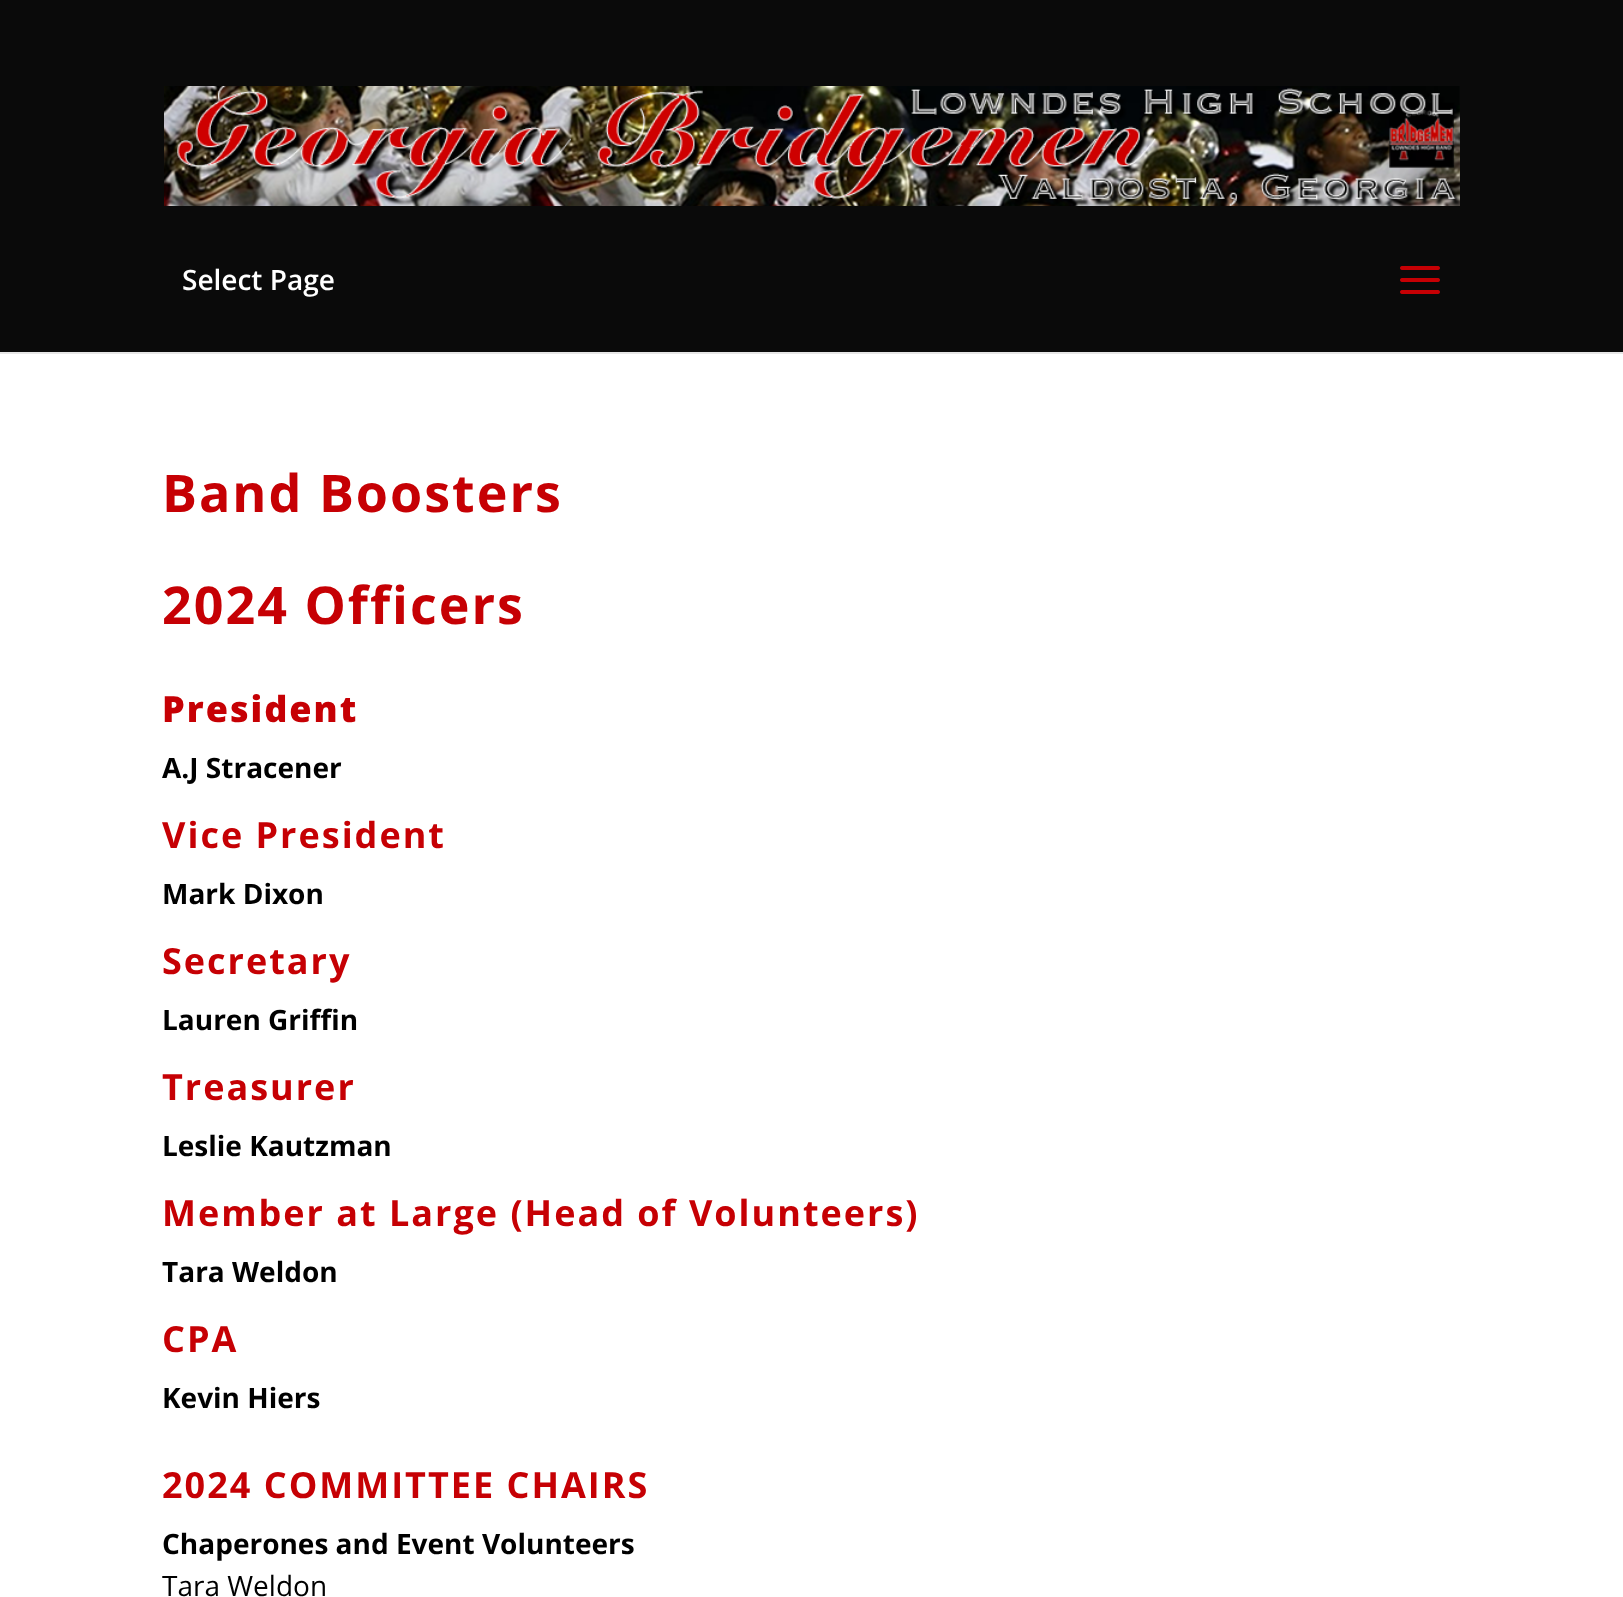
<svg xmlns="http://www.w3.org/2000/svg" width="1623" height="1597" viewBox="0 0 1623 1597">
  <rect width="100%" height="100%" fill="#fff"/>
  <path d="M0 352h1623v2H0z" fill="#e6e6e6"/>
  <path d="M0 0h1623v352H0z" fill="#0a0a0a"/>
  <image x="164" y="86" width="1296" height="120" href="img/1.png"/>
  <image x="1400" y="266" width="40" height="28" href="img/2.png"/>
  <text x="182" y="290" font-family="Open Sans" font-size="28" font-weight="600" fill="#fff">Select Page</text>
  <g font-family="Open Sans" font-size="52" font-weight="bold" letter-spacing="2" fill="#c60004">
    <text x="162" y="512">Band Boosters</text>
    <text x="162" y="624">2024 Officers</text>
  </g>
  <text x="162" y="722" font-family="Open Sans" font-size="36" font-weight="800" letter-spacing="2" fill="#c60004">President</text>
  <text x="162" y="778" font-family="Open Sans" font-size="28" font-weight="bold" fill="#000">A.J Stracener</text>
  <text x="162" y="848" font-family="Open Sans" font-size="36" font-weight="bold" letter-spacing="2" fill="#c60004">Vice President</text>
  <text x="162" y="904" font-family="Open Sans" font-size="28" font-weight="bold" fill="#000">Mark Dixon</text>
  <text x="162" y="974" font-family="Open Sans" font-size="36" font-weight="bold" letter-spacing="2" fill="#c60004">Secretary</text>
  <text x="162" y="1030" font-family="Open Sans" font-size="28" font-weight="bold" fill="#000">Lauren Griffin</text>
  <text x="162" y="1100" font-family="Open Sans" font-size="36" font-weight="bold" letter-spacing="2" fill="#c60004">Treasurer</text>
  <text x="162" y="1156" font-family="Open Sans" font-size="28" font-weight="bold" fill="#000">Leslie Kautzman</text>
  <text x="162" y="1226" font-family="Open Sans" font-size="36" font-weight="bold" letter-spacing="2" fill="#c60004">Member at Large (Head of Volunteers)</text>
  <text x="162" y="1282" font-family="Open Sans" font-size="28" font-weight="bold" fill="#000">Tara Weldon</text>
  <text x="162" y="1352" font-family="Open Sans" font-size="36" font-weight="bold" letter-spacing="2" fill="#c60004">CPA</text>
  <text x="162" y="1408" font-family="Open Sans" font-size="28" font-weight="bold" fill="#000">Kevin Hiers</text>
  <text x="162" y="1498" font-family="Open Sans" font-size="36" font-weight="bold" letter-spacing="2" fill="#c60004">2024 COMMITTEE CHAIRS</text>
  <text x="162" y="1554" font-family="Open Sans" font-size="28" font-weight="bold" fill="#000">Chaperones and Event Volunteers</text>
  <text x="162" y="1596" font-family="Open Sans" font-size="28" fill="#000">Tara Weldon</text>
</svg>
